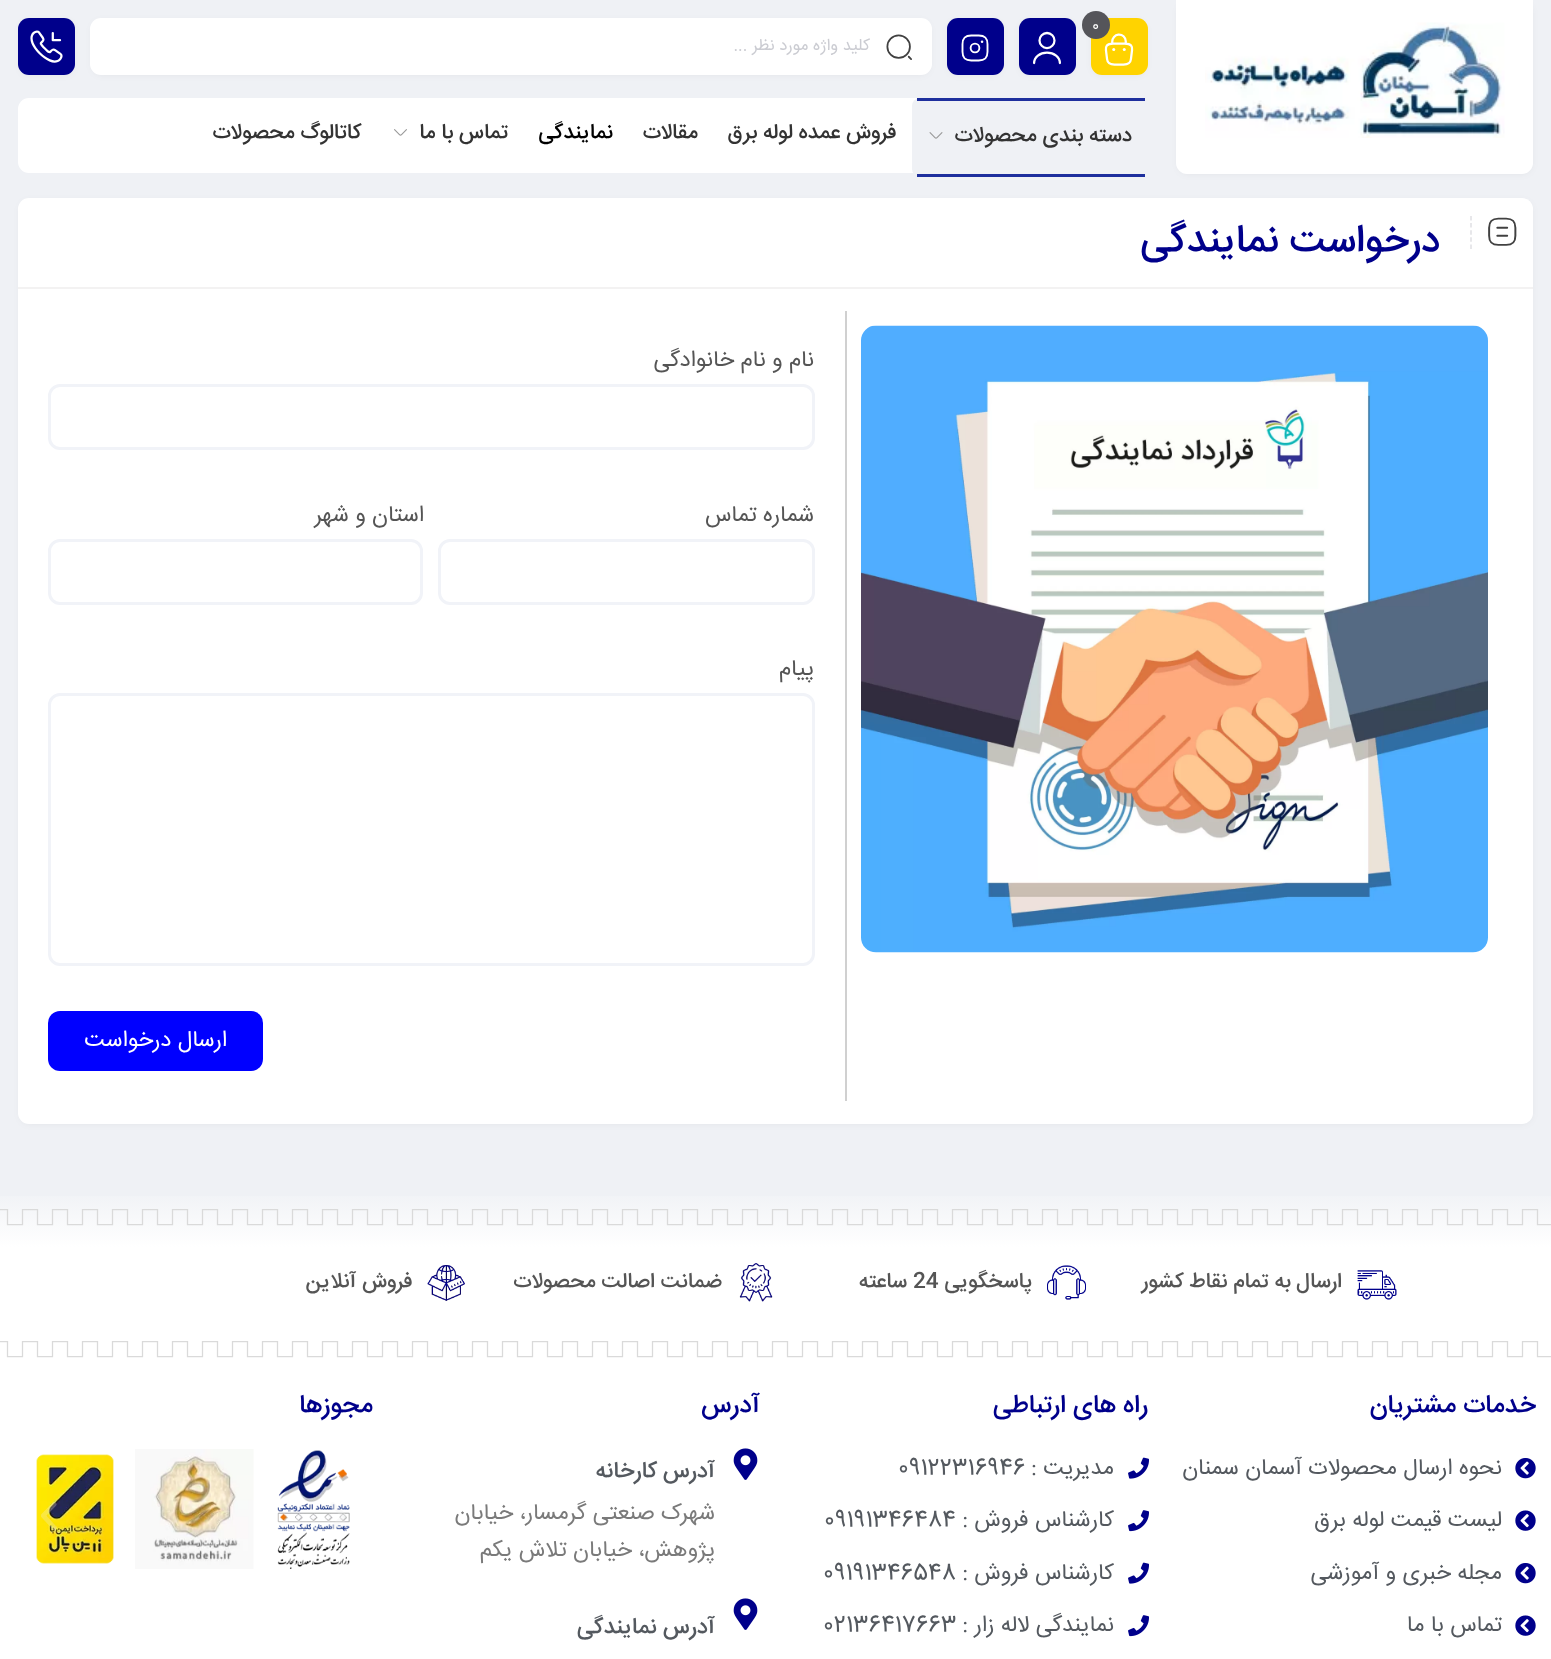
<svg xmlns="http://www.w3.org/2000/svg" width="1551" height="1659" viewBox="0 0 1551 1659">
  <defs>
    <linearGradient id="g1" gradientUnits="userSpaceOnUse" x1="776" y1="1186" x2="776" y2="1247"><stop offset="0" stop-color="#eff1f5"/><stop offset="1" stop-color="#fff"/></linearGradient>
  </defs>
  <rect width="100%" height="100%" fill="#eff1f5"/>
  <rect x="1181" y="6" width="348" height="165" rx="6" fill="#0000001a" filter="blur(5px)"/>
  <path d="M1176 0H1533V163C1533 169 1528 174 1522 174H1187C1181 174 1176 169 1176 163Z" fill="#fff"/>
  <image x="1205" y="22" width="300" height="116" href="img/1.png"/>
  <rect x="1095" y="24" width="48" height="48" rx="6" fill="#0000001a" filter="blur(5px)"/>
  <rect x="1091" y="18" width="57" height="57" rx="11" fill="#ffd300"/>
  <image x="1104" y="33" width="30" height="33" href="img/2.png"/>
  <rect x="1023" y="24" width="48" height="48" rx="6" fill="#0000001a" filter="blur(5px)"/>
  <circle cx="1096" cy="25" r="14" fill="#55555a"/>
  <rect x="1019" y="18" width="57" height="57" rx="11" fill="#00008b"/>
  <image x="1033" y="31" width="28" height="34" href="img/3.png"/>
  <rect x="951" y="24" width="48" height="48" rx="6" fill="#0000001a" filter="blur(5px)"/>
  <rect x="947" y="18" width="57" height="57" rx="11" fill="#00008b"/>
  <image x="961" y="34" width="28" height="28" href="img/4.png"/>
  <rect x="23" y="24" width="48" height="48" rx="6" fill="#0000001a" filter="blur(5px)"/>
  <rect x="18" y="18" width="57" height="57" rx="11" fill="#00008b"/>
  <image x="30" y="30" width="33" height="33" href="img/5.png"/>
  <rect x="95" y="24" width="832" height="48" rx="6" fill="#0000001a" filter="blur(5px)"/>
  <rect x="90" y="18" width="842" height="57" rx="11" fill="#fff"/>
  <image x="886" y="34" width="26" height="26" href="img/6.png"/>
  <rect x="18" y="98" width="1130" height="75" rx="11" fill="#fff"/>
  <rect x="912" y="98" width="236" height="79" rx="8" fill="#eff1f5"/>
  <path d="M917 98h228v3H917z" fill="#1e2f9d"/>
  <path d="M917 174h228v3H917z" fill="#1e2f9d"/>
  <image x="929" y="132" width="14" height="7" href="img/7.png"/>
  <image x="394" y="129" width="13" height="7" href="img/8.png"/>
  <rect x="23" y="204" width="1506" height="917" rx="6" fill="#0000001a" filter="blur(5px)"/>
  <rect x="18" y="198" width="1515" height="926" rx="11" fill="#fff"/>
  <path d="M18 287h1515v2H18z" fill="#f3f2f2"/>
  <path d="M1471 216V249" fill="none" stroke="#dfe0e3" stroke-width="1.5" stroke-dasharray="4.5 2.62"/>
  <image x="1488" y="217" width="29" height="29" href="img/9.png"/>
  <image x="861" y="325" width="627" height="628" href="img/10.png"/>
  <path d="M845 311h2v790H845z" fill="#d0d0d0"/>
  <rect x="49.5" y="385.5" width="764" height="63" rx="10.5" fill="none" stroke="#f1f3f8" stroke-width="3"/>
  <rect x="439.5" y="540.5" width="374" height="63" rx="10.5" fill="none" stroke="#f1f3f8" stroke-width="3"/>
  <rect x="49.5" y="540.5" width="372" height="63" rx="10.5" fill="none" stroke="#f1f3f8" stroke-width="3"/>
  <rect x="49.5" y="694.5" width="764" height="270" rx="10.5" fill="none" stroke="#f1f3f8" stroke-width="3"/>
  <rect x="48" y="1011" width="215" height="60" rx="12" fill="#00f"/>
  <path d="M0 1196h1551v51H0z" fill="url(#g1)"/>
  <image x="0" y="1209" width="1551" height="17" href="img/11.png"/>
  <path d="M0 1247h1551v412H0z" fill="#fff"/>
  <image x="1357" y="1270" width="40" height="30" href="img/12.png"/>
  <image x="1047" y="1265" width="39" height="35" href="img/13.png"/>
  <image x="739" y="1263" width="34" height="39" href="img/14.png"/>
  <image x="427" y="1265" width="38" height="36" href="img/15.png"/>
  <image x="0" y="1341" width="1551" height="17" href="img/16.png"/>
  <image x="1515" y="1458" width="21" height="21" href="img/17.png"/>
  <image x="1515" y="1510" width="21" height="21" href="img/18.png"/>
  <image x="1515" y="1563" width="21" height="21" href="img/17.png"/>
  <image x="1515" y="1615" width="21" height="21" href="img/18.png"/>
  <image x="1128" y="1457" width="21" height="22" href="img/19.png"/>
  <image x="1128" y="1510" width="21" height="22" href="img/20.png"/>
  <image x="1128" y="1562" width="21" height="22" href="img/19.png"/>
  <image x="1128" y="1615" width="21" height="22" href="img/20.png"/>
  <image x="733" y="1448" width="25" height="32" href="img/21.png"/>
  <image x="733" y="1598" width="25" height="32" href="img/21.png"/>
  <image x="277" y="1450" width="73" height="119" href="img/22.png"/>
  <image x="135" y="1449" width="119" height="120" href="img/23.png"/>
  <image x="36" y="1454" width="78" height="110" href="img/24.png"/>
  <image x="330" y="1502" width="16" height="28" href="img/25.png"/>
  <image x="41" y="1502" width="16" height="29" href="img/26.png"/>
  <text x="1092" y="30" font-family="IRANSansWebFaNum" font-size="15" fill="#fff">0</text>
  <text x="870" y="50" font-family="IRANSansWebFaNum" font-size="16.5" direction="rtl" fill="#cbccd2">کلید واژه مورد نظر ...</text>
  <g font-family="IRANSansWebFaNum" font-size="21" font-weight="500" direction="rtl" fill="#333">
    <text x="1132" y="141">دسته بندی محصولات</text>
    <text x="896" y="138">فروش عمده لوله برق</text>
    <text x="698" y="138">مقالات</text>
  </g>
  <text x="613" y="138" font-family="IRANSansWebFaNum" font-size="21" font-weight="500" direction="rtl" fill="#000">نمایندگی</text>
  <g font-family="IRANSansWebFaNum" font-size="21" font-weight="500" direction="rtl" fill="#333">
    <text x="508" y="138">تماس با ما</text>
    <text x="361" y="138">کاتالوگ محصولات</text>
  </g>
  <text x="1440" y="251" font-family="IRANSansWebFaNum" font-size="39" font-weight="500" direction="rtl" fill="#00008b">درخواست نمایندگی</text>
  <g font-family="IRANSansWebFaNum" font-size="22.5" direction="rtl" fill="#555">
    <text x="814" y="366">نام و نام خانوادگی</text>
    <text x="814" y="521">شماره تماس</text>
    <text x="424" y="521">استان و شهر</text>
    <text x="814" y="675">پیام</text>
  </g>
  <text x="227" y="1046" font-family="IRANSansWebFaNum" font-size="22.5" direction="rtl" fill="#fff">ارسال درخواست</text>
  <g font-family="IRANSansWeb" font-size="21" font-weight="500" direction="rtl" fill="#555">
    <text x="1342" y="1287">ارسال به تمام نقاط کشور</text>
    <text x="1032" y="1287">پاسخگویی</text>
  </g>
  <text x="913" y="1287" font-family="IRANSansWeb" font-size="21" font-weight="500" fill="#555">24</text>
  <g font-family="IRANSansWeb" font-size="21" font-weight="500" direction="rtl" fill="#555">
    <text x="907" y="1287">ساعته</text>
    <text x="722" y="1287">ضمانت اصالت محصولات</text>
    <text x="412" y="1287">فروش آنلاین</text>
  </g>
  <text x="1536" y="1412" font-family="IRANSansWebFaNum" font-size="25.5" font-weight="500" direction="rtl" fill="#00008b">خدمات مشتریان</text>
  <g font-family="IRANSansWebFaNum" font-size="22.5" direction="rtl" fill="#54595f">
    <text x="1502" y="1474">نحوه ارسال محصولات آسمان سمنان</text>
    <text x="1502" y="1526">لیست قیمت لوله برق</text>
    <text x="1502" y="1579">مجله خبری و آموزشی</text>
    <text x="1502" y="1631">تماس با ما</text>
  </g>
  <text x="1148" y="1412" font-family="IRANSansWebFaNum" font-size="25.5" font-weight="500" direction="rtl" fill="#00008b">راه های ارتباطی</text>
  <text x="1114" y="1474" font-family="IRANSansWebFaNum" font-size="22.5" direction="rtl" fill="#54595f">مدیریت :</text>
  <text x="898" y="1474" font-family="IRANSansWebFaNum" font-size="22.5" fill="#54595f">09122316946</text>
  <text x="1114" y="1526" font-family="IRANSansWebFaNum" font-size="22.5" direction="rtl" fill="#54595f">کارشناس فروش :</text>
  <text x="824" y="1526" font-family="IRANSansWebFaNum" font-size="22.5" fill="#54595f">09191346484</text>
  <text x="1114" y="1579" font-family="IRANSansWebFaNum" font-size="22.5" direction="rtl" fill="#54595f">کارشناس فروش :</text>
  <text x="823" y="1579" font-family="IRANSansWebFaNum" font-size="22.5" fill="#54595f">09191346548</text>
  <text x="1114" y="1631" font-family="IRANSansWebFaNum" font-size="22.5" direction="rtl" fill="#54595f">نمایندگی لاله زار :</text>
  <text x="823" y="1631" font-family="IRANSansWebFaNum" font-size="22.5" fill="#54595f">02136417663</text>
  <text x="760" y="1412" font-family="IRANSansWebFaNum" font-size="25.5" font-weight="500" direction="rtl" fill="#00008b">آدرس</text>
  <text x="715" y="1477" font-family="IRANSansWebFaNum" font-size="22.5" font-weight="500" direction="rtl" fill="#54595f">آدرس کارخانه</text>
  <g font-family="IRANSansWebFaNum" font-size="22.5" direction="rtl" fill="#7a7a7a">
    <text x="715" y="1519">شهرک صنعتی گرمسار، خیابان</text>
    <text x="715" y="1556">پژوهش، خیابان تلاش یکم</text>
  </g>
  <text x="715" y="1633" font-family="IRANSansWebFaNum" font-size="22.5" font-weight="500" direction="rtl" fill="#54595f">آدرس نمایندگی</text>
  <text x="373" y="1412" font-family="IRANSansWebFaNum" font-size="25.5" font-weight="500" direction="rtl" fill="#00008b">مجوزها</text>
</svg>
